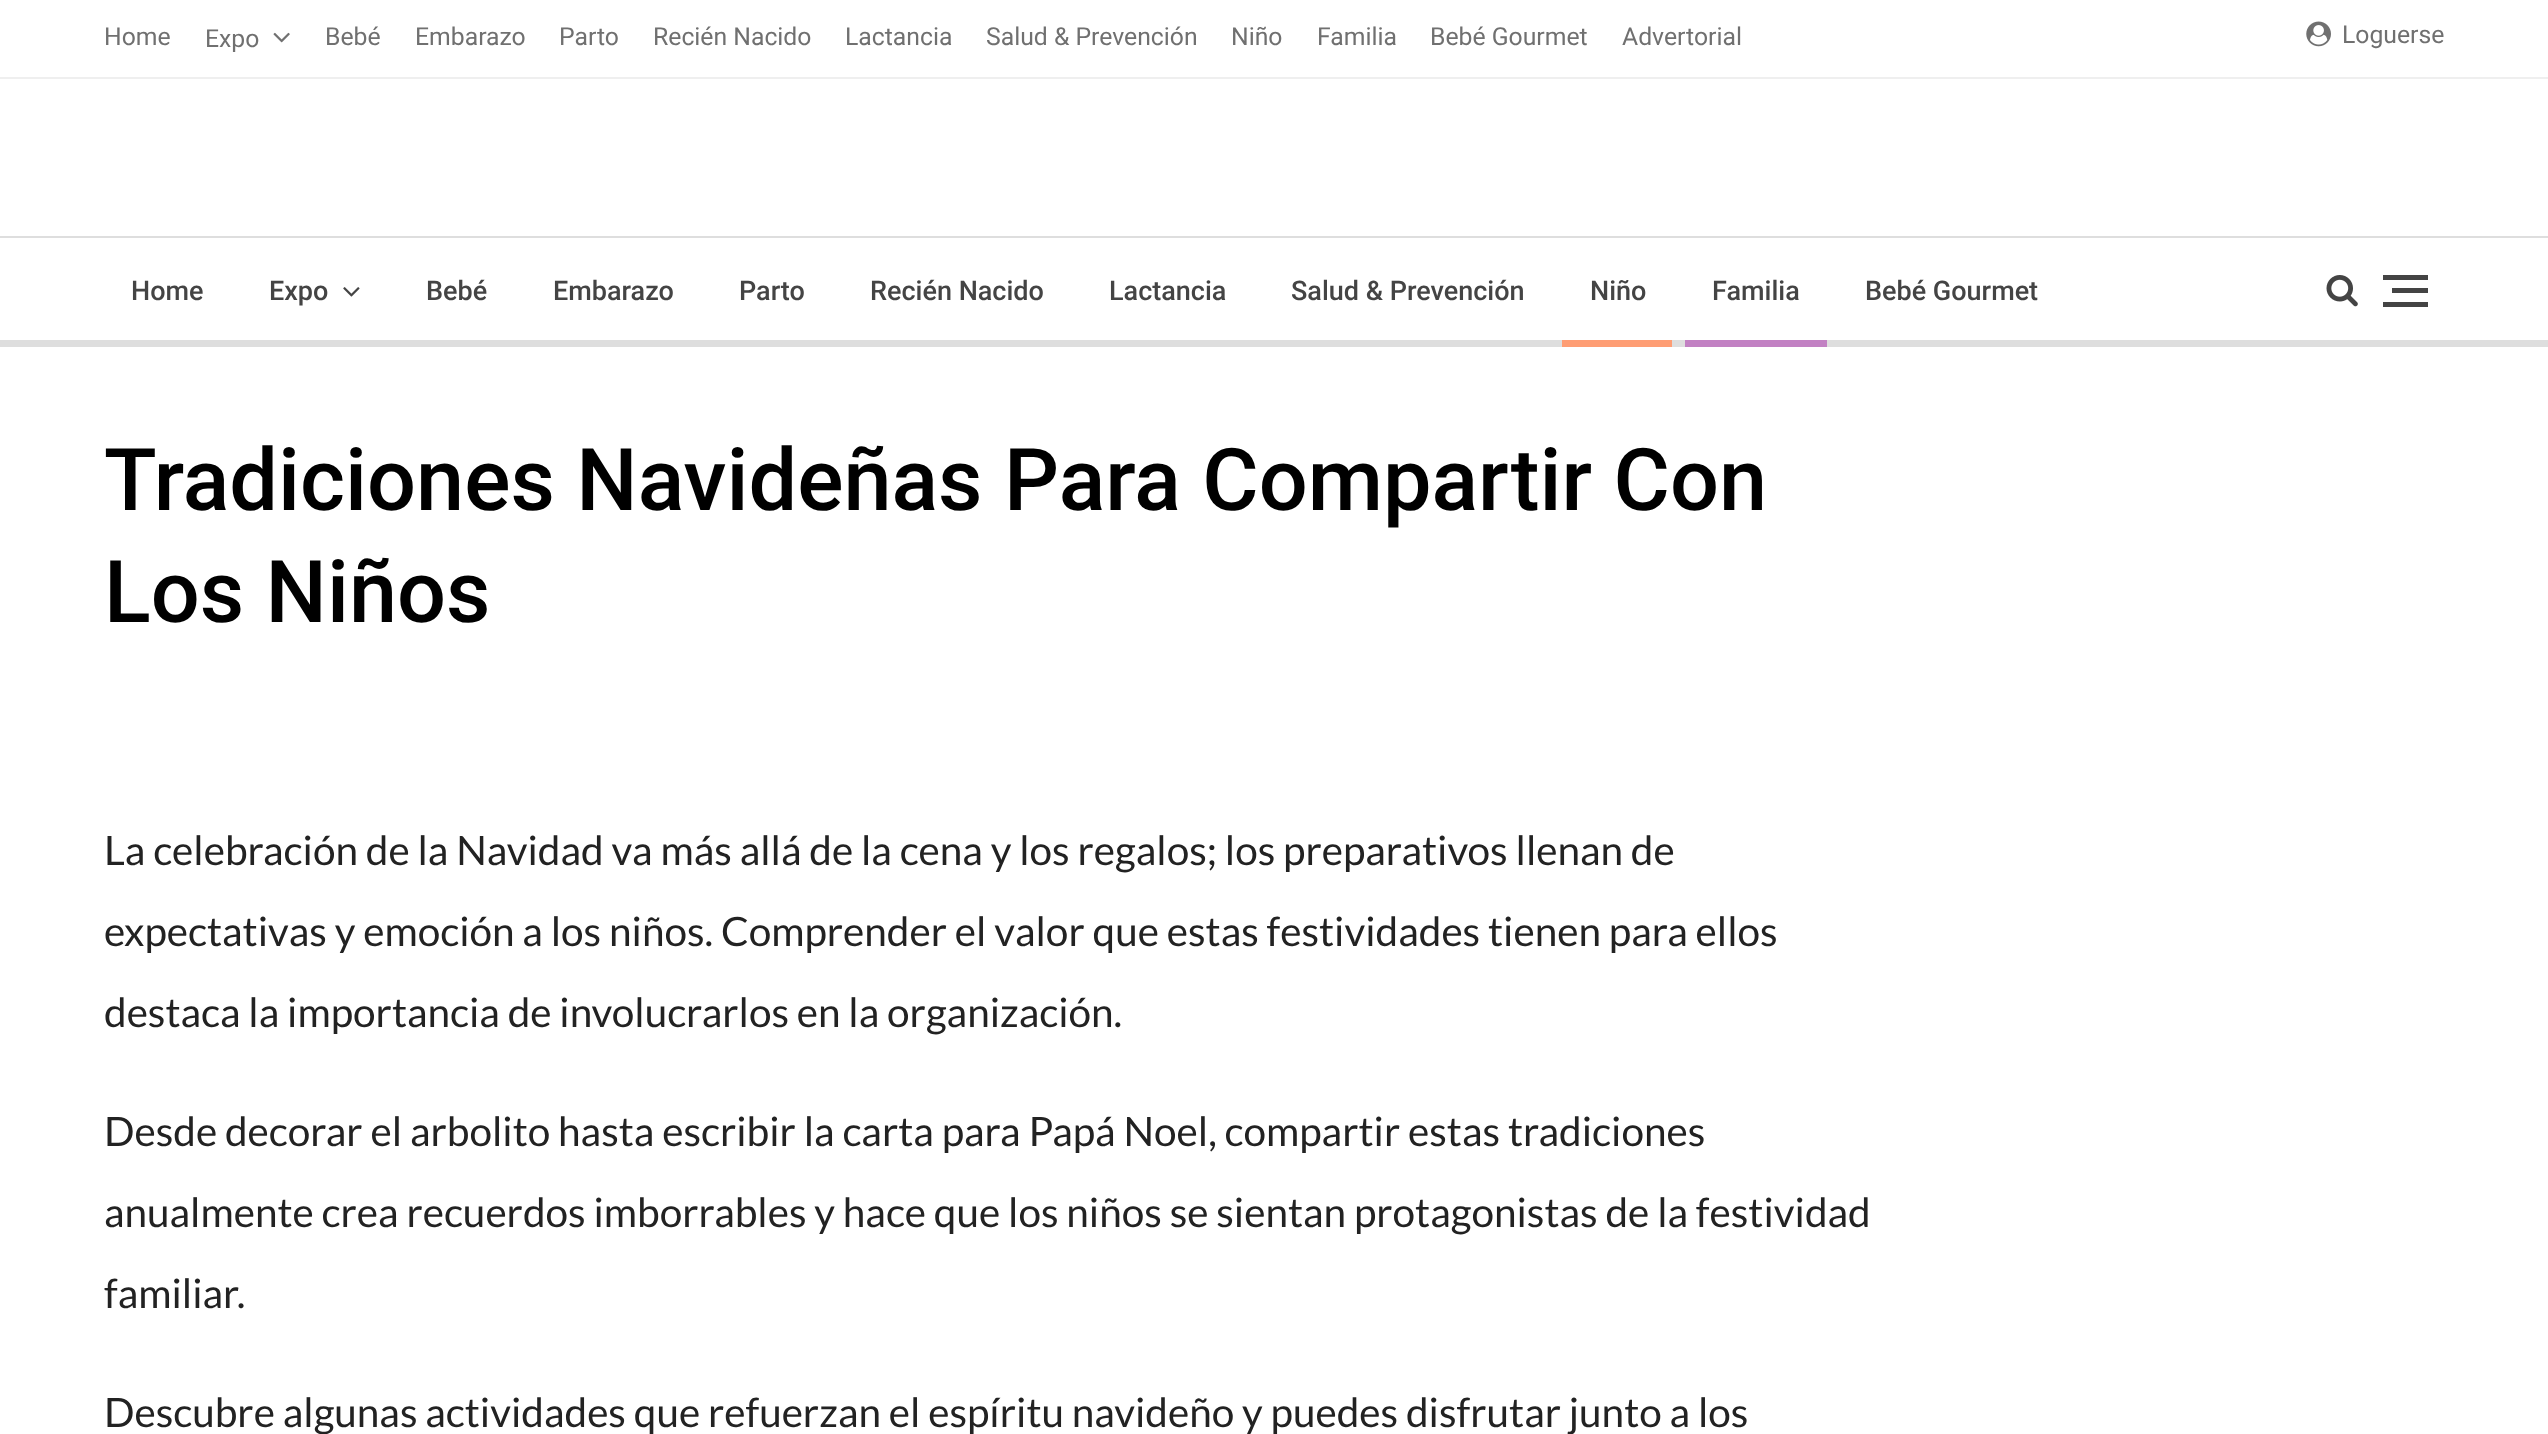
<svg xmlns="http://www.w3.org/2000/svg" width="2548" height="1434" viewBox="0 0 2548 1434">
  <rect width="100%" height="100%" fill="#fff"/>
  <path d="M0 77h2548v2H0z" fill="#efefef"/>
  <image x="273" y="32" width="17" height="11" href="img/1.png"/>
  <image x="2306" y="21" width="25" height="26" href="img/2.png"/>
  <path d="M0 236h2548v2H0z" fill="#dedede"/>
  <path d="M0 340h2548v7H0z" fill="#dedede"/>
  <image x="343" y="287" width="17" height="10" href="img/3.png"/>
  <path d="M1562 340h110v7H1562z" fill="#fe9d74"/>
  <path d="M1685 340h142v7H1685z" fill="#c281c3"/>
  <image x="2326" y="275" width="32" height="32" href="img/4.png"/>
  <path d="M2392 288h36v5H2392z" fill="#444"/>
  <path d="M2383 275h45v5H2383z" fill="#444"/>
  <path d="M2383 302h45v5H2383z" fill="#444"/>
  <g font-family="Roboto" font-size="24.75" fill="#707070">
    <text x="104" y="45">Home</text>
    <text x="205" y="47">Expo</text>
    <text x="325" y="45">Bebé</text>
    <text x="415" y="45">Embarazo</text>
    <text x="559" y="45">Parto</text>
    <text x="653" y="45">Recién Nacido</text>
    <text x="845" y="45">Lactancia</text>
    <text x="986" y="45">Salud &amp; Prevención</text>
    <text x="1231" y="45">Niño</text>
    <text x="1317" y="45">Familia</text>
    <text x="1430" y="45">Bebé Gourmet</text>
    <text x="1622" y="45">Advertorial</text>
    <text x="2342" y="43">Loguerse</text>
  </g>
  <g font-family="Roboto" font-size="27" font-weight="500" fill="#444">
    <text x="131" y="300">Home</text>
    <text x="269" y="300">Expo</text>
    <text x="426" y="300">Bebé</text>
    <text x="553" y="300">Embarazo</text>
    <text x="739" y="300">Parto</text>
    <text x="870" y="300">Recién Nacido</text>
    <text x="1109" y="300">Lactancia</text>
    <text x="1291" y="300">Salud &amp; Prevención</text>
    <text x="1590" y="300">Niño</text>
    <text x="1712" y="300">Familia</text>
    <text x="1865" y="300">Bebé Gourmet</text>
  </g>
  <g font-family="Roboto" font-size="86.4" font-weight="500" fill="#000">
    <text x="104" y="510">Tradiciones Navideñas Para Compartir Con</text>
    <text x="104" y="622">Los Niños</text>
  </g>
  <g font-family="Lato" font-size="40.5" fill="#222">
    <text x="104" y="865">La celebración de la Navidad va más allá de la cena y los regalos; los preparativos llenan de</text>
    <text x="104" y="946">expectativas y emoción a los niños. Comprender el valor que estas festividades tienen para ellos</text>
    <text x="104" y="1027">destaca la importancia de involucrarlos en la organización.</text>
    <text x="104" y="1146">Desde decorar el arbolito hasta escribir la carta para Papá Noel, compartir estas tradiciones</text>
    <text x="104" y="1227">anualmente crea recuerdos imborrables y hace que los niños se sientan protagonistas de la festividad</text>
    <text x="104" y="1308">familiar.</text>
    <text x="104" y="1427">Descubre algunas actividades que refuerzan el espíritu navideño y puedes disfrutar junto a los</text>
  </g>
</svg>
